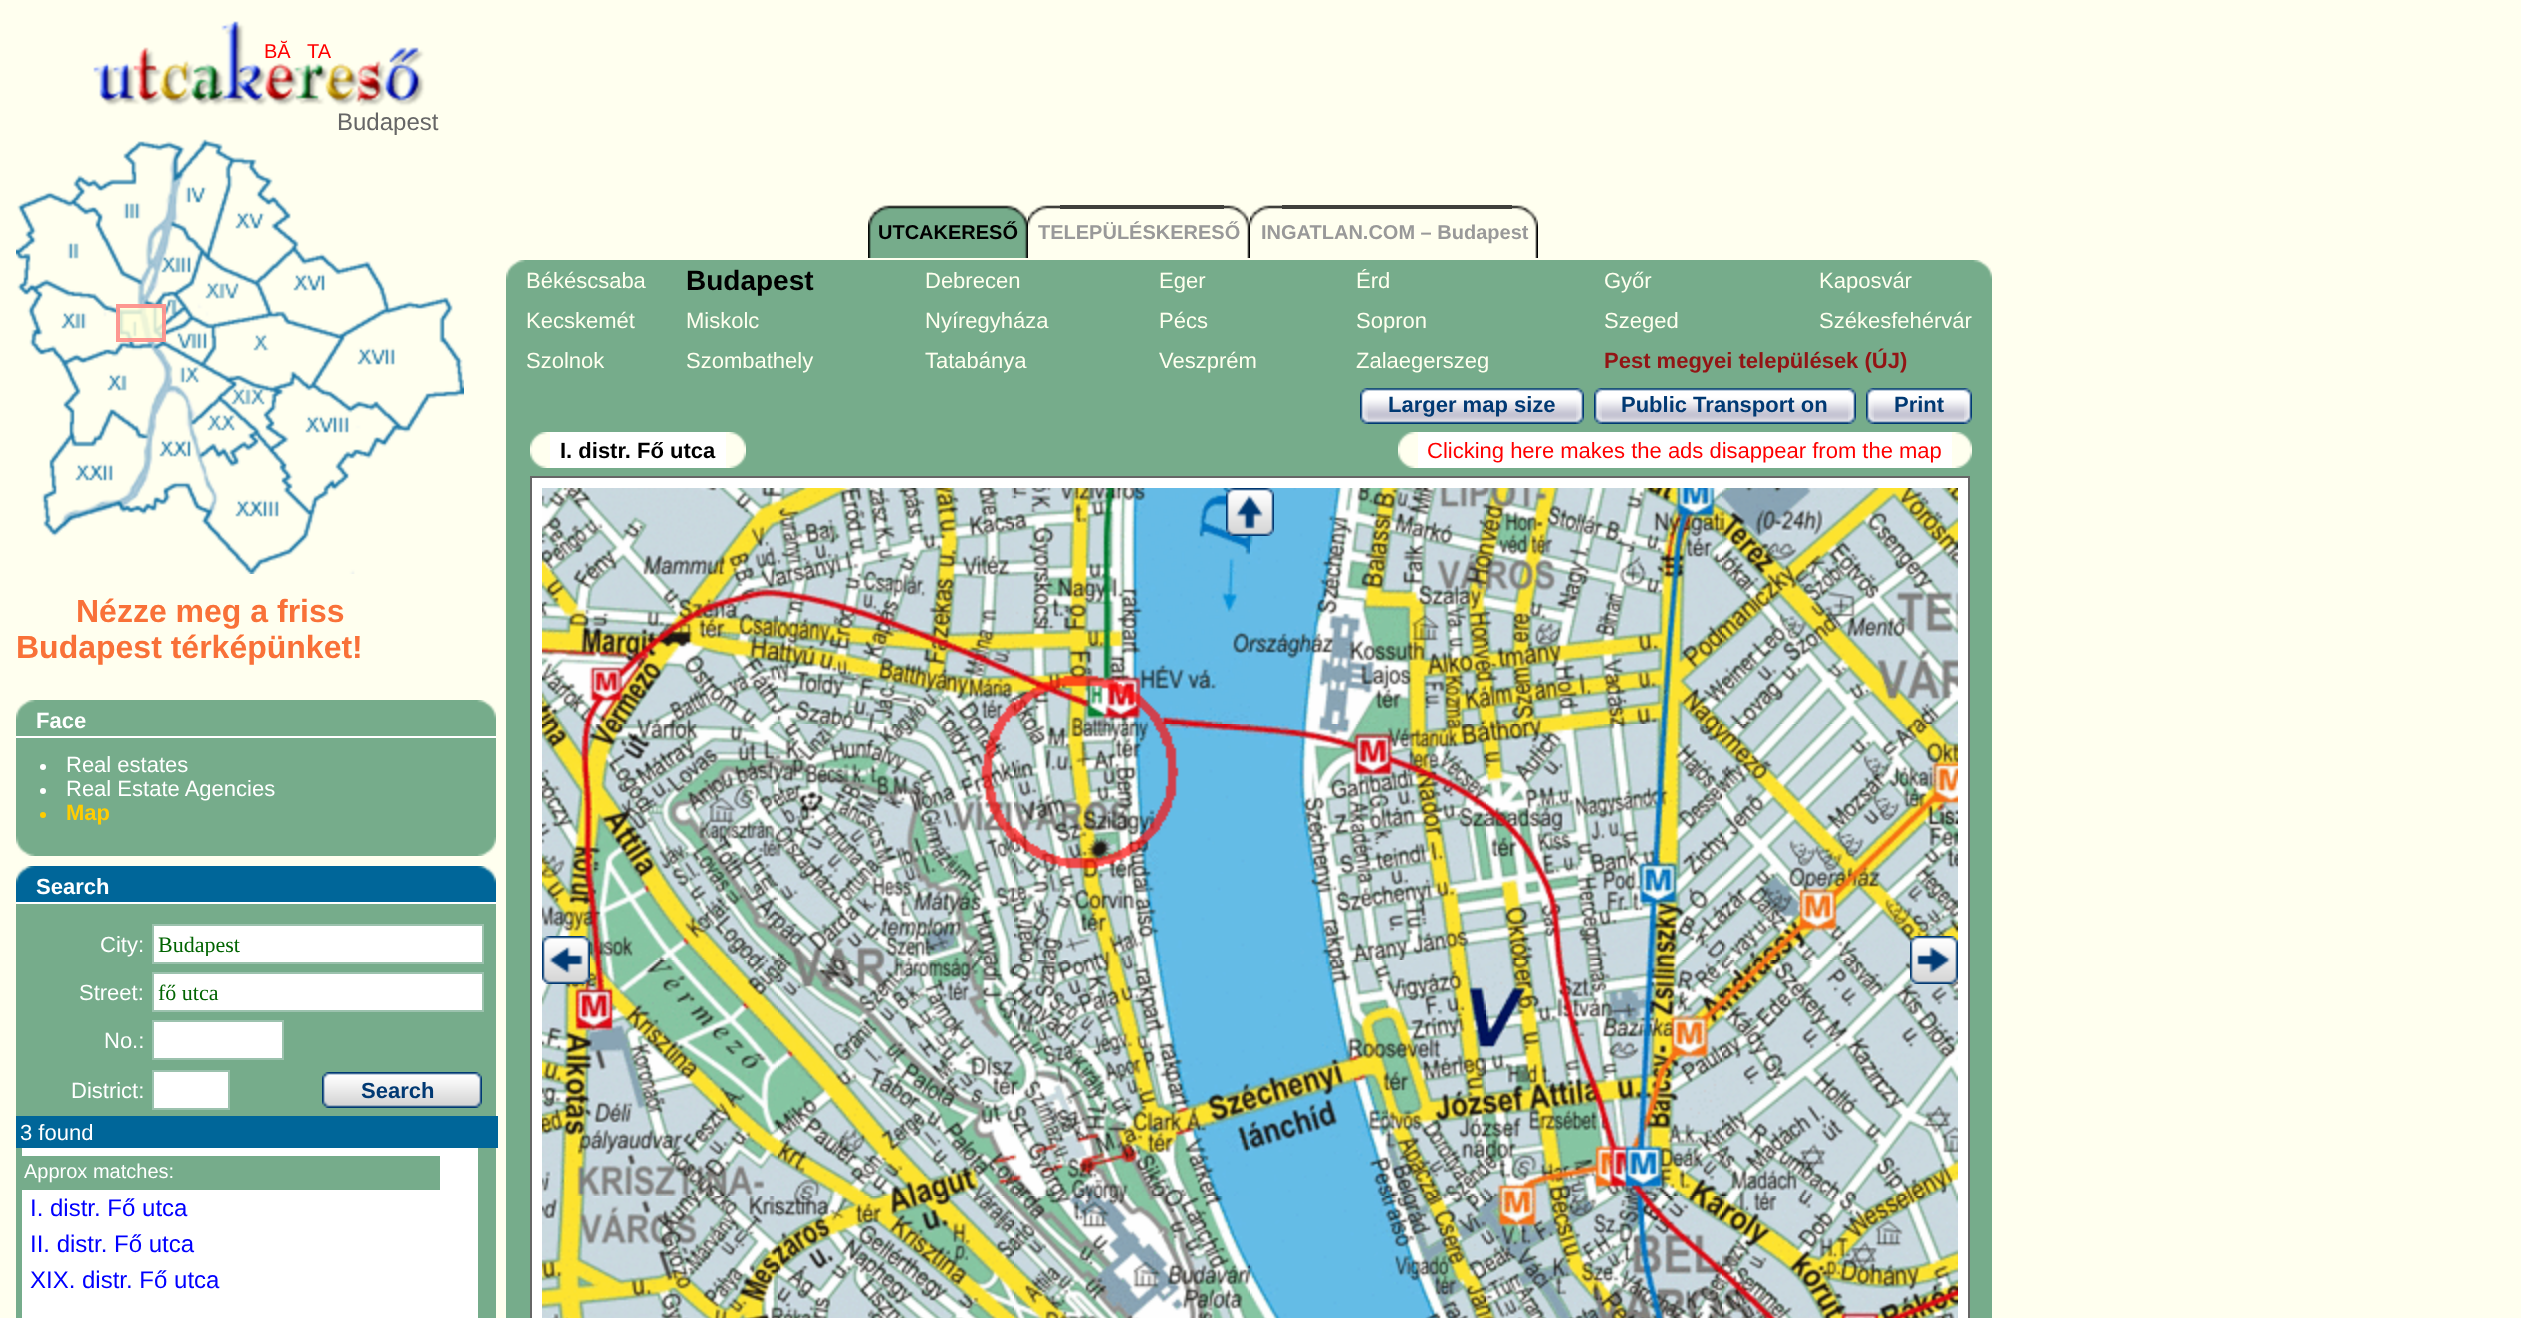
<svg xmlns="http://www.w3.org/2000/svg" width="2521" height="1318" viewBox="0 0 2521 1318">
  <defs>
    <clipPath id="clip1"><path d="M158 932h320v24H158z"/></clipPath>
  </defs>
  <rect width="100%" height="100%" fill="#ffffef"/>
  <image x="93" y="21" width="332" height="86" href="img/1.png"/>
  <image x="16" y="139" width="448" height="435" href="img/2.png"/>
  <path d="M116 304h50v38H116z" fill="#ffffd8cc"/>
  <path d="M118 306h46v34H118z" fill="none" stroke="#fe7e7ecc" stroke-width="4"/>
  <path d="M16 720h480v136H16z" fill="#76ac8b"/>
  <image x="16" y="700" width="480" height="20" href="img/3.png"/>
  <path d="M16 736h480v2H16z" fill="#fff"/>
  <circle cx="43" cy="767" r="3" fill="#fff"/>
  <circle cx="43" cy="791" r="3" fill="#fff"/>
  <circle cx="43" cy="815" r="3" fill="#fc0"/>
  <image x="16" y="836" width="19" height="20" href="img/4.png"/>
  <image x="477" y="837" width="19" height="19" href="img/5.png"/>
  <image x="16" y="866" width="480" height="36" href="img/6.png"/>
  <path d="M16 902h480v2H16z" fill="#fff"/>
  <path d="M16 904h480v212H16z" fill="#76ac8b"/>
  <path d="M153 925h330v38H153z" fill="#fff" stroke="#9cc2ae" stroke-width="2"/>
  <path d="M153 973h330v38H153z" fill="#fff" stroke="#9cc2ae" stroke-width="2"/>
  <path d="M153 1021h130v38H153z" fill="#fff" stroke="#9cc2ae" stroke-width="2"/>
  <path d="M153 1071h76v38H153z" fill="#fff" stroke="#9cc2ae" stroke-width="2"/>
  <image x="322" y="1072" width="160" height="36" href="img/7.png"/>
  <path d="M16 1116h482v32H16z" fill="#069"/>
  <path d="M16 1148h480v170H16z" fill="#76ac8b"/>
  <path d="M22 1148h456v170H22z" fill="#fff"/>
  <path d="M22 1156h418v34H22z" fill="#76ac8b"/>
  <path d="M506 260h1486v1058H506z" fill="#76ac8b"/>
  <image x="889" y="205" width="118" height="53" href="img/8.png"/>
  <image x="868" y="205" width="21" height="53" href="img/9.png"/>
  <image x="1007" y="205" width="21" height="53" href="img/10.png"/>
  <path d="M1060 205h164v4H1060z" fill="#40403c"/>
  <image x="1028" y="205" width="32" height="22" href="img/11.png"/>
  <image x="1224" y="205" width="26" height="53" href="img/12.png"/>
  <path d="M1282 205h230v4H1282z" fill="#40403c"/>
  <image x="1250" y="205" width="32" height="22" href="img/11.png"/>
  <image x="1512" y="205" width="26" height="53" href="img/12.png"/>
  <image x="506" y="260" width="19" height="20" href="img/13.png"/>
  <image x="1973" y="260" width="19" height="19" href="img/14.png"/>
  <image x="1368" y="388" width="208" height="36" href="img/15.png"/>
  <image x="1360" y="388" width="8" height="36" href="img/16.png"/>
  <image x="1576" y="388" width="8" height="36" href="img/17.png"/>
  <image x="1602" y="388" width="246" height="36" href="img/18.png"/>
  <image x="1594" y="388" width="8" height="36" href="img/16.png"/>
  <image x="1848" y="388" width="8" height="36" href="img/17.png"/>
  <image x="1874" y="388" width="90" height="36" href="img/19.png"/>
  <image x="1866" y="388" width="8" height="36" href="img/16.png"/>
  <image x="1964" y="388" width="8" height="36" href="img/17.png"/>
  <path d="M550 432h176v36H550z" fill="#fff"/>
  <image x="530" y="432" width="20" height="36" href="img/20.png"/>
  <image x="726" y="432" width="20" height="36" href="img/21.png"/>
  <path d="M1418 432h534v36H1418z" fill="#fff"/>
  <image x="1398" y="432" width="20" height="36" href="img/20.png"/>
  <image x="1952" y="432" width="20" height="36" href="img/21.png"/>
  <path d="M531 477h1438v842H531z" fill="#fff" stroke="#666" stroke-width="2"/>
  <image x="542" y="488" width="236" height="236" href="img/22.png"/>
  <image x="778" y="488" width="236" height="236" href="img/23.png"/>
  <image x="1014" y="488" width="236" height="236" href="img/24.png"/>
  <image x="1250" y="488" width="236" height="236" href="img/25.png"/>
  <image x="1486" y="488" width="236" height="236" href="img/26.png"/>
  <image x="1722" y="488" width="236" height="236" href="img/27.png"/>
  <image x="542" y="724" width="236" height="236" href="img/28.png"/>
  <image x="778" y="724" width="236" height="236" href="img/29.png"/>
  <image x="1014" y="724" width="236" height="236" href="img/30.png"/>
  <image x="1250" y="724" width="236" height="236" href="img/31.png"/>
  <image x="1486" y="724" width="236" height="236" href="img/32.png"/>
  <image x="1722" y="724" width="236" height="236" href="img/33.png"/>
  <image x="542" y="960" width="236" height="236" href="img/34.png"/>
  <image x="778" y="960" width="236" height="236" href="img/35.png"/>
  <image x="1014" y="960" width="236" height="236" href="img/36.png"/>
  <image x="1250" y="960" width="236" height="236" href="img/37.png"/>
  <image x="1486" y="960" width="236" height="236" href="img/38.png"/>
  <image x="1722" y="960" width="236" height="236" href="img/39.png"/>
  <image x="542" y="1196" width="236" height="122" href="img/40.png"/>
  <image x="778" y="1196" width="236" height="122" href="img/41.png"/>
  <image x="1014" y="1196" width="236" height="122" href="img/42.png"/>
  <image x="1250" y="1196" width="236" height="122" href="img/43.png"/>
  <image x="1486" y="1196" width="236" height="122" href="img/44.png"/>
  <image x="1722" y="1196" width="236" height="122" href="img/45.png"/>
  <image x="1226" y="488" width="48" height="48" href="img/46.png"/>
  <image x="542" y="936" width="48" height="48" href="img/47.png"/>
  <image x="1910" y="936" width="48" height="48" href="img/48.png"/>
  <g font-family="Liberation Sans" font-size="20" fill="#f00">
    <text x="264" y="58">BĂ</text>
    <text x="307" y="58">TA</text>
  </g>
  <text x="337" y="130" font-family="Liberation Sans" font-size="24" fill="#666">Budapest</text>
  <g font-family="Liberation Sans" font-size="32" font-weight="bold" fill="#f97138">
    <text x="76" y="622">Nézze meg a friss</text>
    <text x="16" y="658">Budapest térképünket!</text>
  </g>
  <text x="36" y="728" font-family="Liberation Sans" font-size="22" font-weight="bold" fill="#fff">Face</text>
  <g font-family="Liberation Sans" font-size="22" fill="#fff">
    <text x="66" y="772">Real estates</text>
    <text x="66" y="796">Real Estate Agencies</text>
  </g>
  <text x="66" y="820" font-family="Liberation Sans" font-size="22" font-weight="bold" fill="#fc0">Map</text>
  <text x="36" y="894" font-family="Liberation Sans" font-size="22" font-weight="bold" fill="#fff">Search</text>
  <text x="100" y="952" font-family="Liberation Sans" font-size="22" fill="#fff">City:</text>
  <g clip-path="url(#clip1)">
    <text x="158" y="952" font-family="Liberation Serif" font-size="22" fill="#006400">Budapest</text>
  </g>
  <text x="79" y="1000" font-family="Liberation Sans" font-size="22" fill="#fff">Street:</text>
  <text x="158" y="1000" font-family="Liberation Serif" font-size="22" fill="#006400">fő utca</text>
  <g font-family="Liberation Sans" font-size="22" fill="#fff">
    <text x="104" y="1048">No.:</text>
    <text x="71" y="1098">District:</text>
  </g>
  <text x="361" y="1098" font-family="Liberation Sans" font-size="22" font-weight="bold" fill="#003973">Search</text>
  <text x="20" y="1140" font-family="Liberation Sans" font-size="22" fill="#fff">3 found</text>
  <text x="24" y="1178" font-family="Liberation Sans" font-size="20" fill="#fff">Approx matches:</text>
  <g font-family="Liberation Sans" font-size="24" fill="#00f">
    <text x="30" y="1216">I. distr. Fő utca</text>
    <text x="30" y="1252">II. distr. Fő utca</text>
    <text x="30" y="1288">XIX. distr. Fő utca</text>
  </g>
  <text x="878" y="239" font-family="Liberation Sans" font-size="20" font-weight="bold" fill="#000">UTCAKERESŐ</text>
  <g font-family="Liberation Sans" font-size="20" font-weight="bold" fill="#999">
    <text x="1038" y="239">TELEPÜLÉSKERESŐ</text>
    <text x="1261" y="239">INGATLAN.COM – Budapest</text>
  </g>
  <text x="526" y="288" font-family="Liberation Sans" font-size="22" fill="#ffffef">Békéscsaba</text>
  <text x="686" y="290" font-family="Liberation Sans" font-size="28" font-weight="bold" fill="#000">Budapest</text>
  <g font-family="Liberation Sans" font-size="22" fill="#ffffef">
    <text x="925" y="288">Debrecen</text>
    <text x="1159" y="288">Eger</text>
    <text x="1356" y="288">Érd</text>
    <text x="1604" y="288">Győr</text>
    <text x="1819" y="288">Kaposvár</text>
    <text x="526" y="328">Kecskemét</text>
    <text x="686" y="328">Miskolc</text>
    <text x="925" y="328">Nyíregyháza</text>
    <text x="1159" y="328">Pécs</text>
    <text x="1356" y="328">Sopron</text>
    <text x="1604" y="328">Szeged</text>
    <text x="1819" y="328">Székesfehérvár</text>
    <text x="526" y="368">Szolnok</text>
    <text x="686" y="368">Szombathely</text>
    <text x="925" y="368">Tatabánya</text>
    <text x="1159" y="368">Veszprém</text>
    <text x="1356" y="368">Zalaegerszeg</text>
  </g>
  <text x="1604" y="368" font-family="Liberation Sans" font-size="22" font-weight="bold" fill="#931414">Pest megyei települések (ÚJ)</text>
  <g font-family="Liberation Sans" font-size="22" font-weight="bold" fill="#003973">
    <text x="1388" y="412">Larger map size</text>
    <text x="1621" y="412">Public Transport on</text>
    <text x="1894" y="412">Print</text>
  </g>
  <text x="560" y="458" font-family="Liberation Sans" font-size="22" font-weight="bold" fill="#000">I. distr. Fő utca</text>
  <text x="1427" y="458" font-family="Liberation Sans" font-size="22" fill="#f00">Clicking here makes the ads disappear from the map</text>
</svg>
